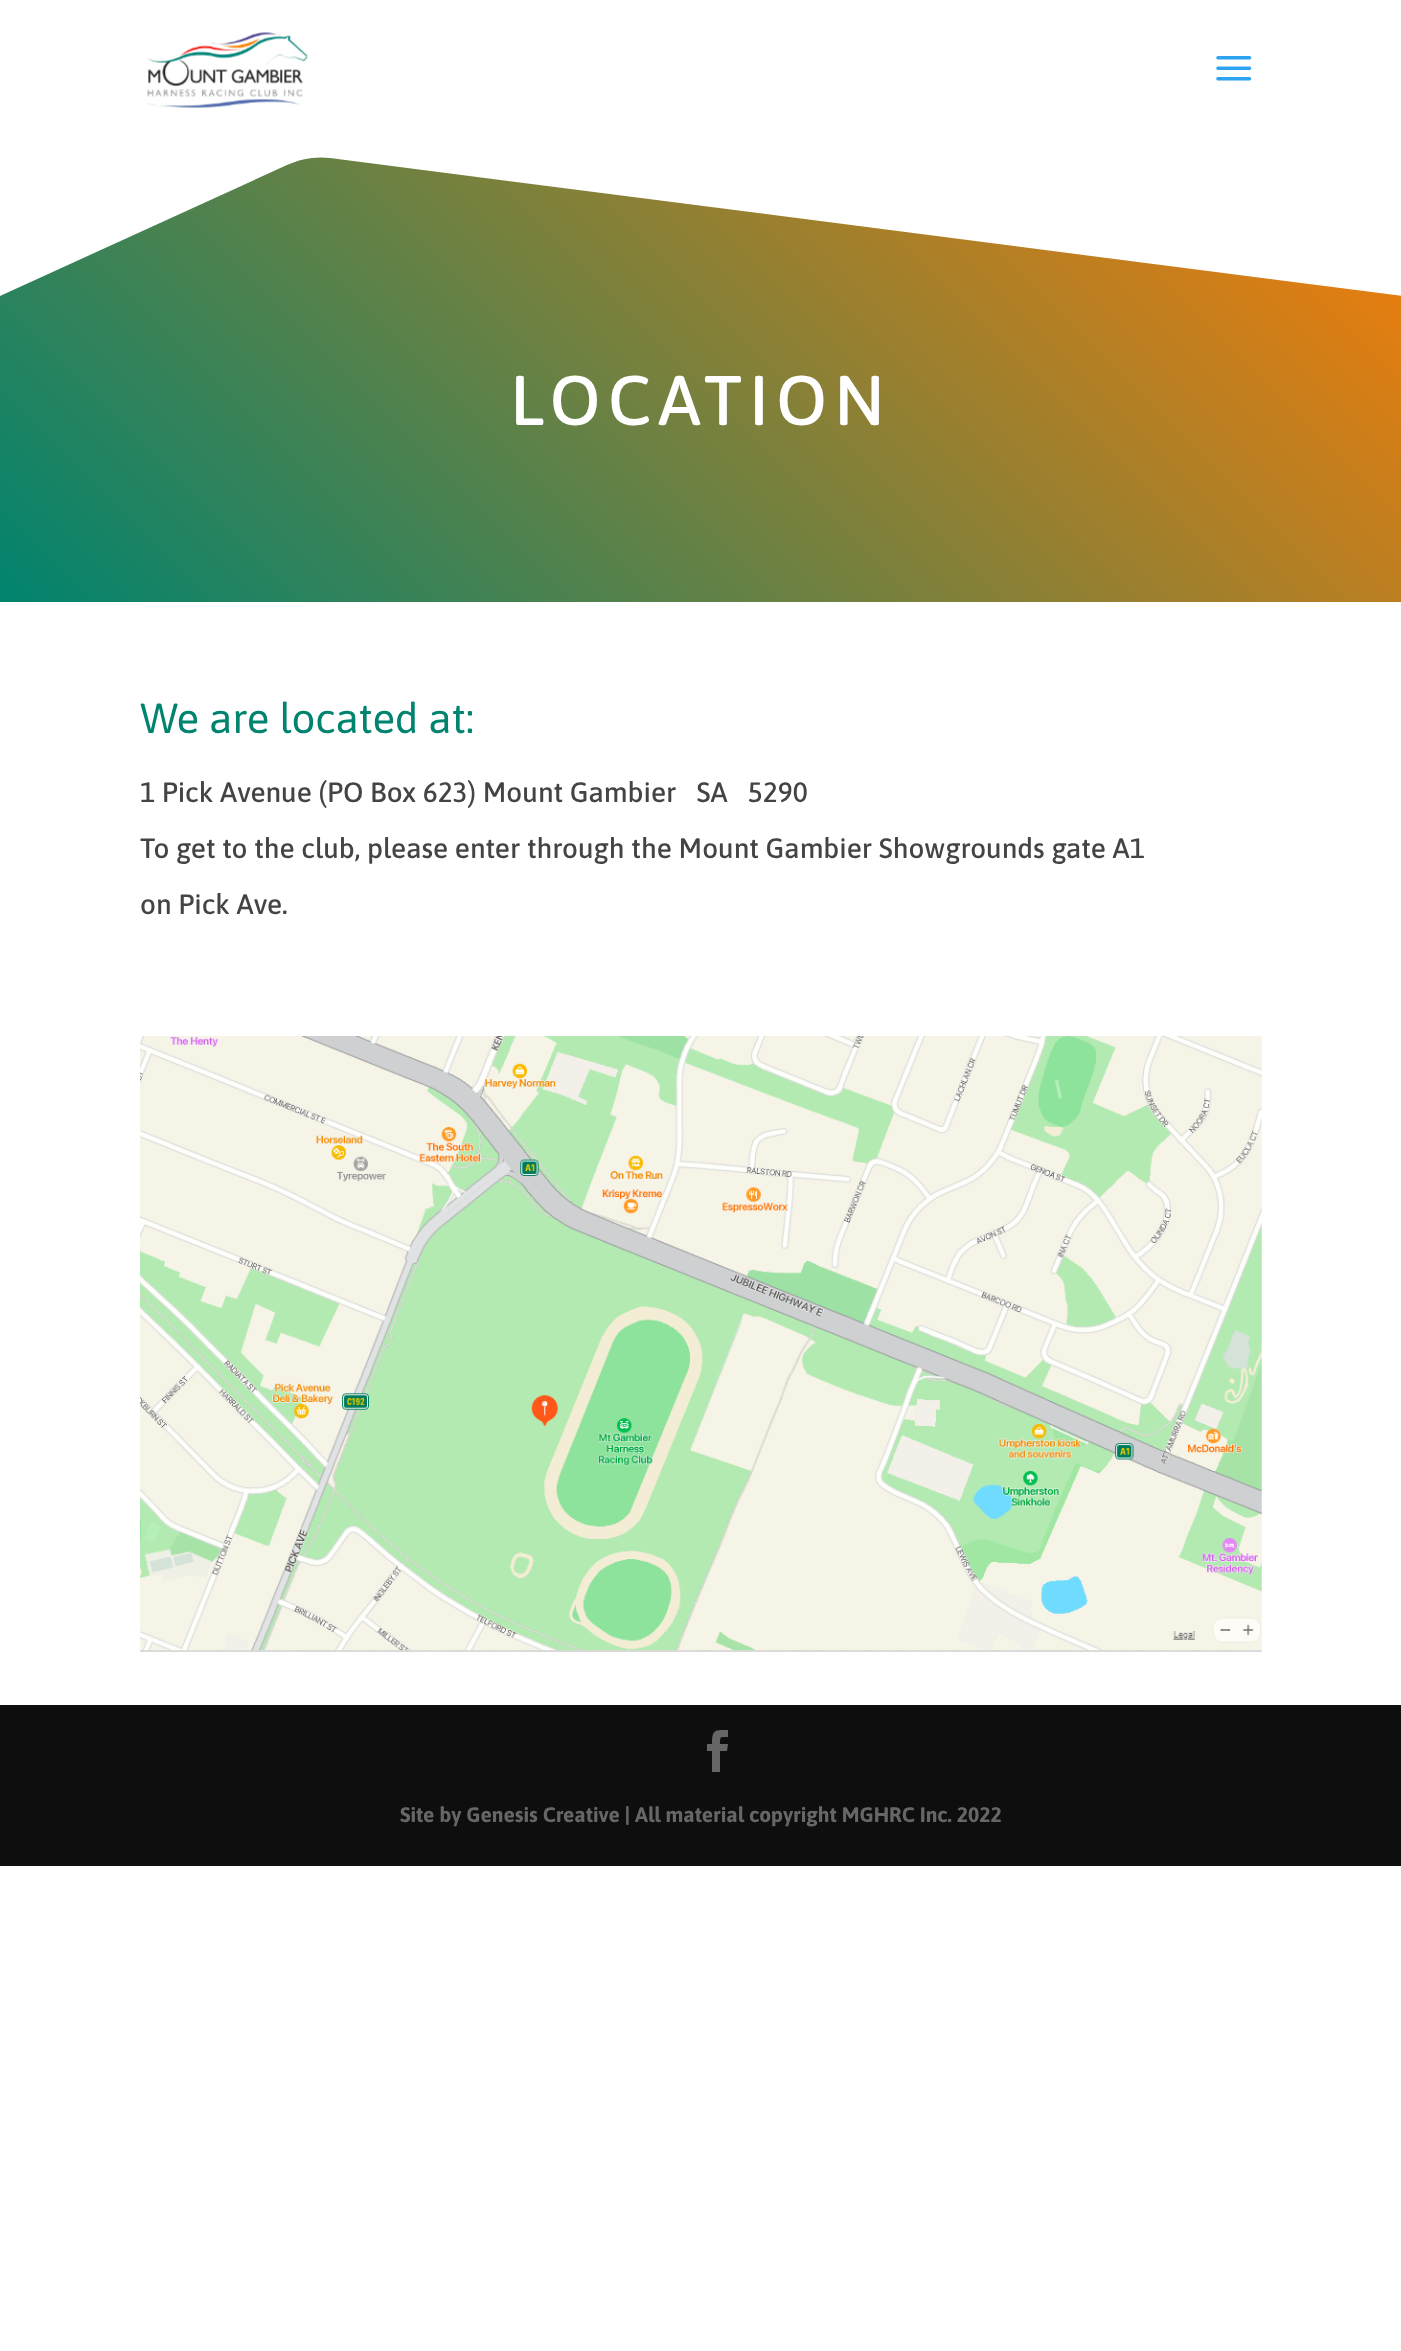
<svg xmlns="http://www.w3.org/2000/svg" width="1401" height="2351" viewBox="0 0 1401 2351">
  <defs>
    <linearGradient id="g1" gradientUnits="userSpaceOnUse" x1="1167" y1="-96" x2="235" y2="837"><stop offset="0" stop-color="#fa7d07"/><stop offset="1" stop-color="#00846f"/></linearGradient>
  </defs>
  <rect width="100%" height="100%" fill="#fff"/>
  <image x="147" y="31" width="161" height="78" href="img/1.png"/>
  <image x="1216" y="56" width="36" height="25" href="img/2.png"/>
  <path d="M0 157h1401v445H0z" fill="url(#g1)"/>
  <path d="M0 296L287 165C300 159 315 156 330 158L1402 296V138H0Z" fill="#fff"/>
  <image x="140" y="1036" width="1122" height="616" href="img/3.png"/>
  <path d="M0 1705h1401v161H0z" fill="#0e0e0e"/>
  <path d="M712 1772H720V1751H727L728 1744H720C720 1736 720 1737 728 1737V1730C715 1730 712 1729 712 1744H707V1751H712Z" fill="#666"/>
  <text x="510" y="425" font-family="Asap" font-size="70" font-weight="500" letter-spacing="7" fill="#fff">LOCATION</text>
  <text x="140" y="733" font-family="Asap" font-size="42" fill="#00846f">We are located at:</text>
  <g font-family="Asap" font-size="28" font-weight="500" fill="#444">
    <text x="140" y="802" xml:space="preserve">1 Pick Avenue (PO Box 623) Mount Gambier   SA   5290</text>
    <text x="140" y="858">To get to the club, please enter through the Mount Gambier Showgrounds gate A1</text>
    <text x="140" y="914">on Pick Ave.</text>
  </g>
  <text x="400" y="1822" font-family="Asap" font-size="21" font-weight="bold" fill="#666">Site by Genesis Creative | All material copyright MGHRC Inc. 2022</text>
</svg>
